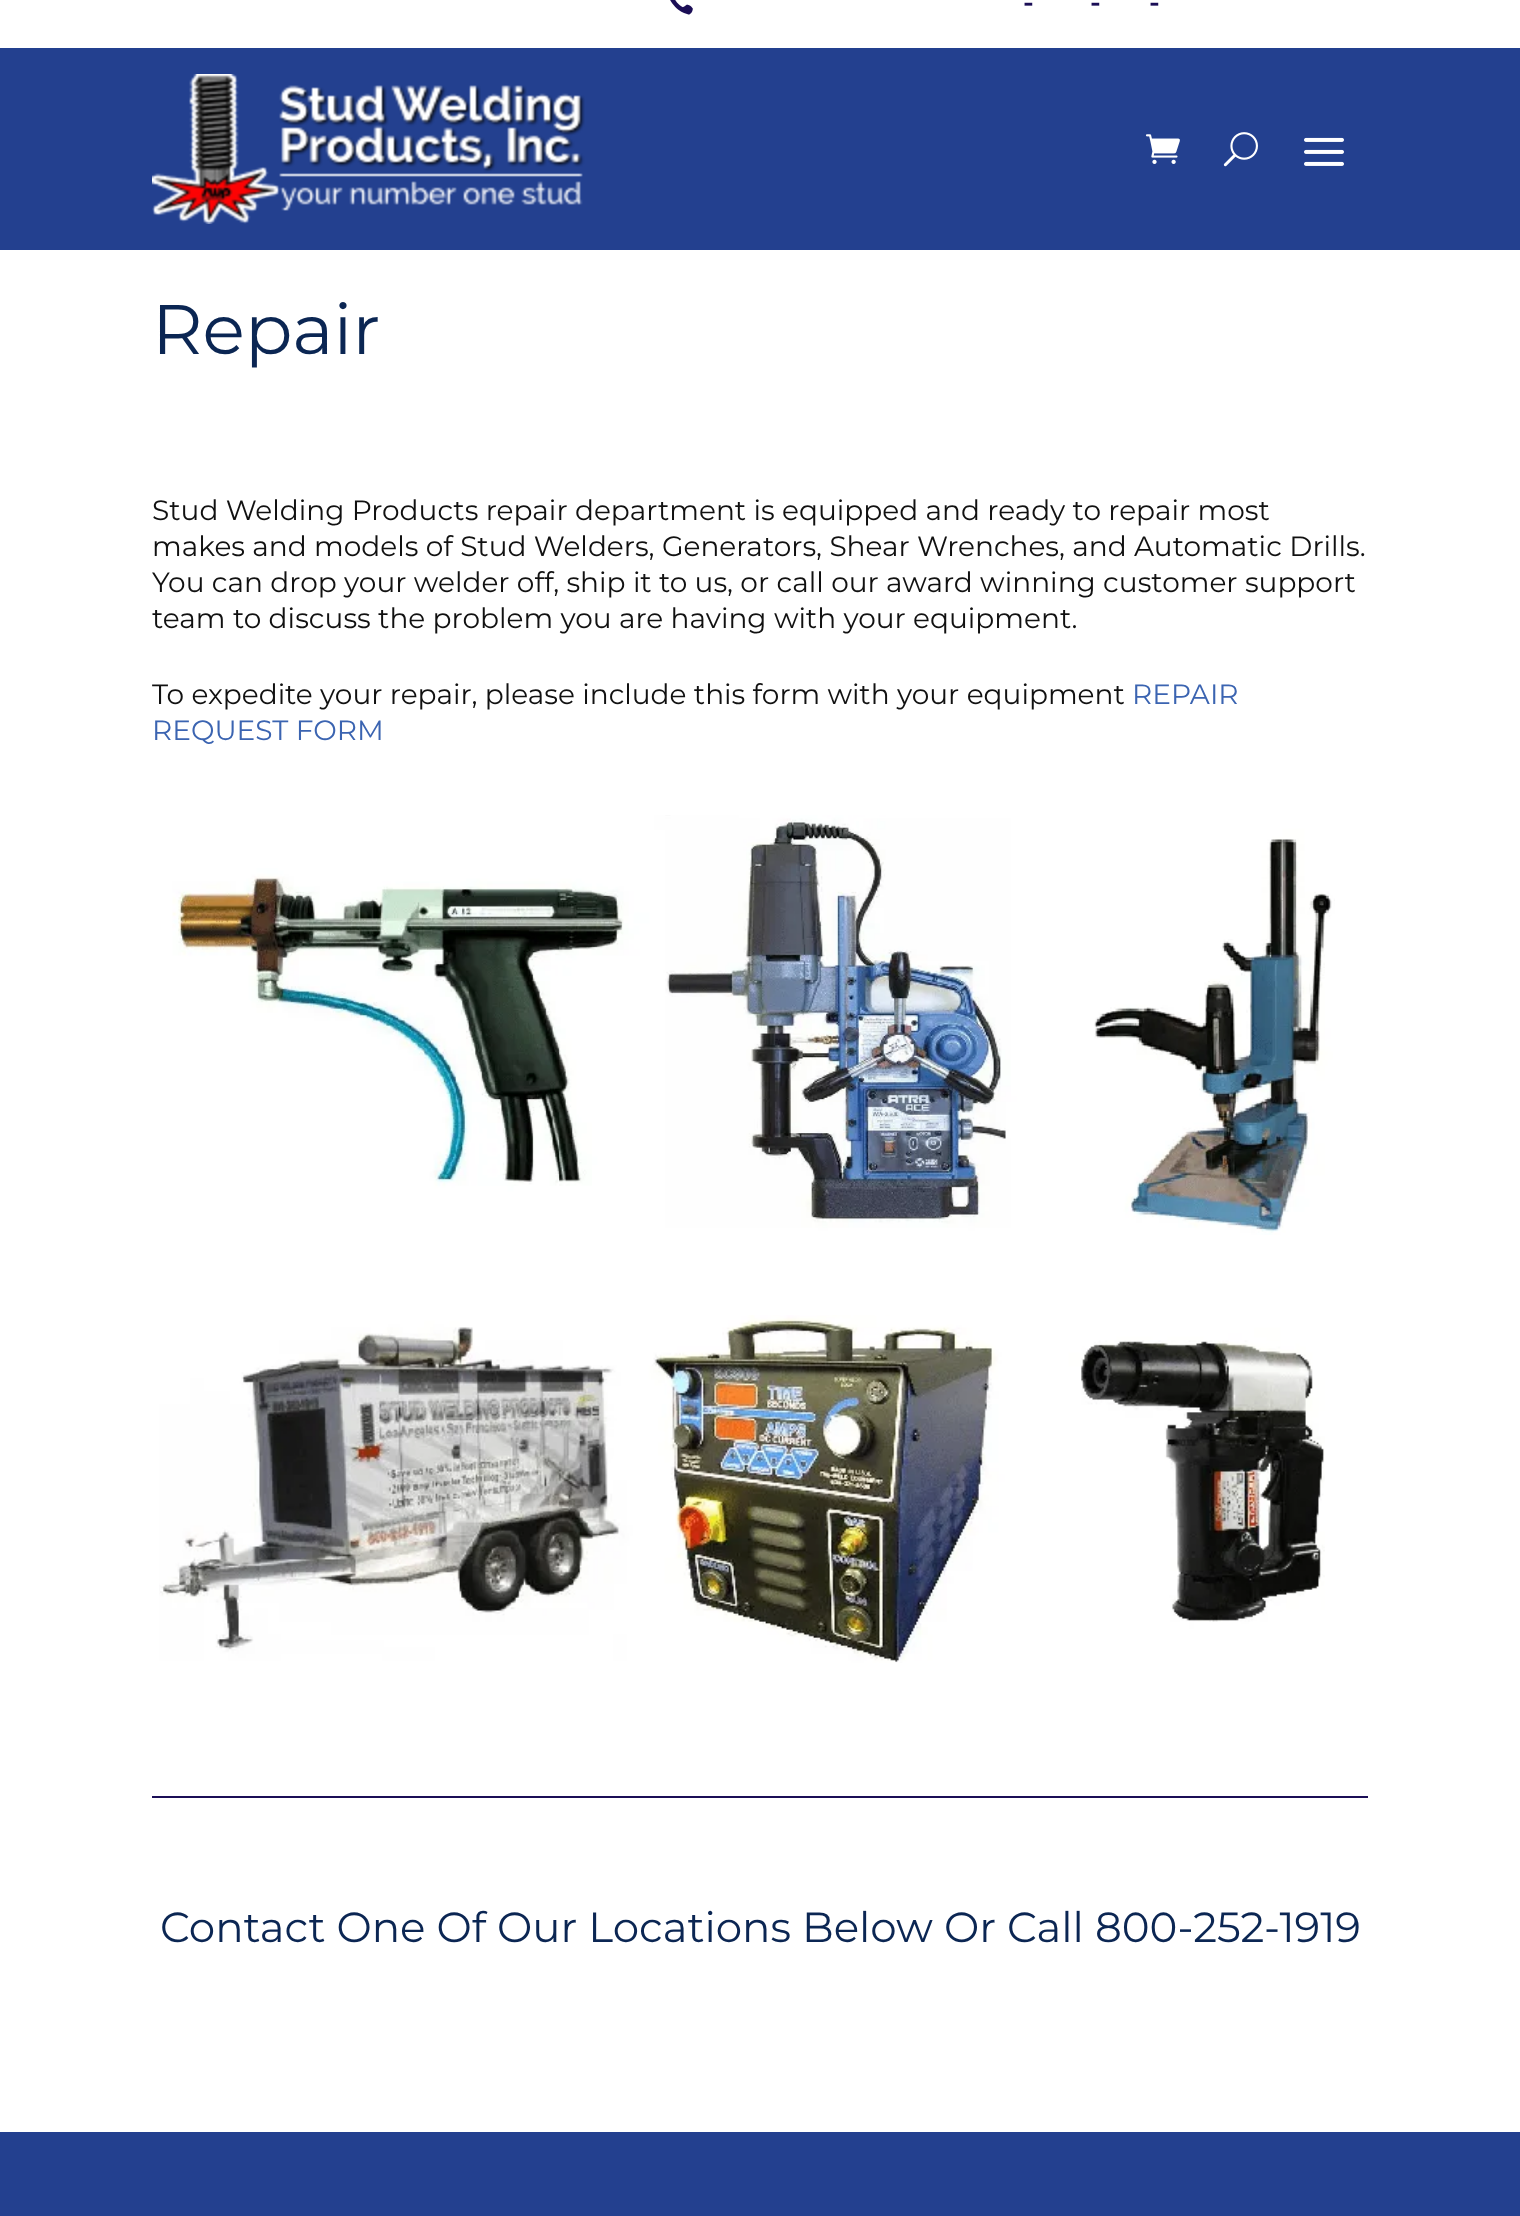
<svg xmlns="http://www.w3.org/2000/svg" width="1520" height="2216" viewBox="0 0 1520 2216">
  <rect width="100%" height="100%" fill="#fff"/>
  <image x="670" y="0" width="23" height="15" href="img/1.png"/>
  <path d="M0 48h1520v202H0z" fill="#23408f"/>
  <image x="152" y="74" width="433" height="150" href="img/2.png"/>
  <image x="1145" y="134" width="35" height="30" href="img/3.png"/>
  <image x="1223" y="132" width="35" height="35" href="img/4.png"/>
  <image x="1304" y="137" width="40" height="29" href="img/5.png"/>
  <image x="172" y="815" width="1163" height="420" href="img/6.png"/>
  <image x="159" y="1315" width="1166" height="348" href="img/7.png"/>
  <path d="M152 1796h1216v2H152z" fill="#1b0e56"/>
  <path d="M0 2132h1520v84H0z" fill="#23408f"/>
  <g font-family="'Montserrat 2'" font-size="28" font-weight="100" fill="#1b0e56">
    <text x="1023" y="12">-</text>
    <text x="1090" y="12">-</text>
    <text x="1149" y="12">-</text>
  </g>
  <text x="152" y="354" font-family="Montserrat" font-size="70" font-weight="100" fill="#0b2653">Repair</text>
  <g font-family="Montserrat" font-size="28" font-weight="100" fill="#111">
    <text x="152" y="520">Stud Welding Products repair department is equipped and ready to repair most</text>
    <text x="152" y="556">makes and models of Stud Welders, Generators, Shear Wrenches, and Automatic Drills.</text>
    <text x="152" y="592">You can drop your welder off, ship it to us, or call our award winning customer support</text>
    <text x="152" y="628">team to discuss the problem you are having with your equipment.</text>
    <text x="152" y="704">To expedite your repair, please include this form with your equipment</text>
  </g>
  <g font-family="Montserrat" font-size="28" font-weight="100" fill="#3b64b1">
    <text x="1132" y="704">REPAIR</text>
    <text x="152" y="740">REQUEST FORM</text>
  </g>
  <text x="160" y="1942" font-family="Montserrat" font-size="42" font-weight="100" fill="#0b2653">Contact One Of Our Locations Below Or Call 800-252-1919</text>
</svg>
